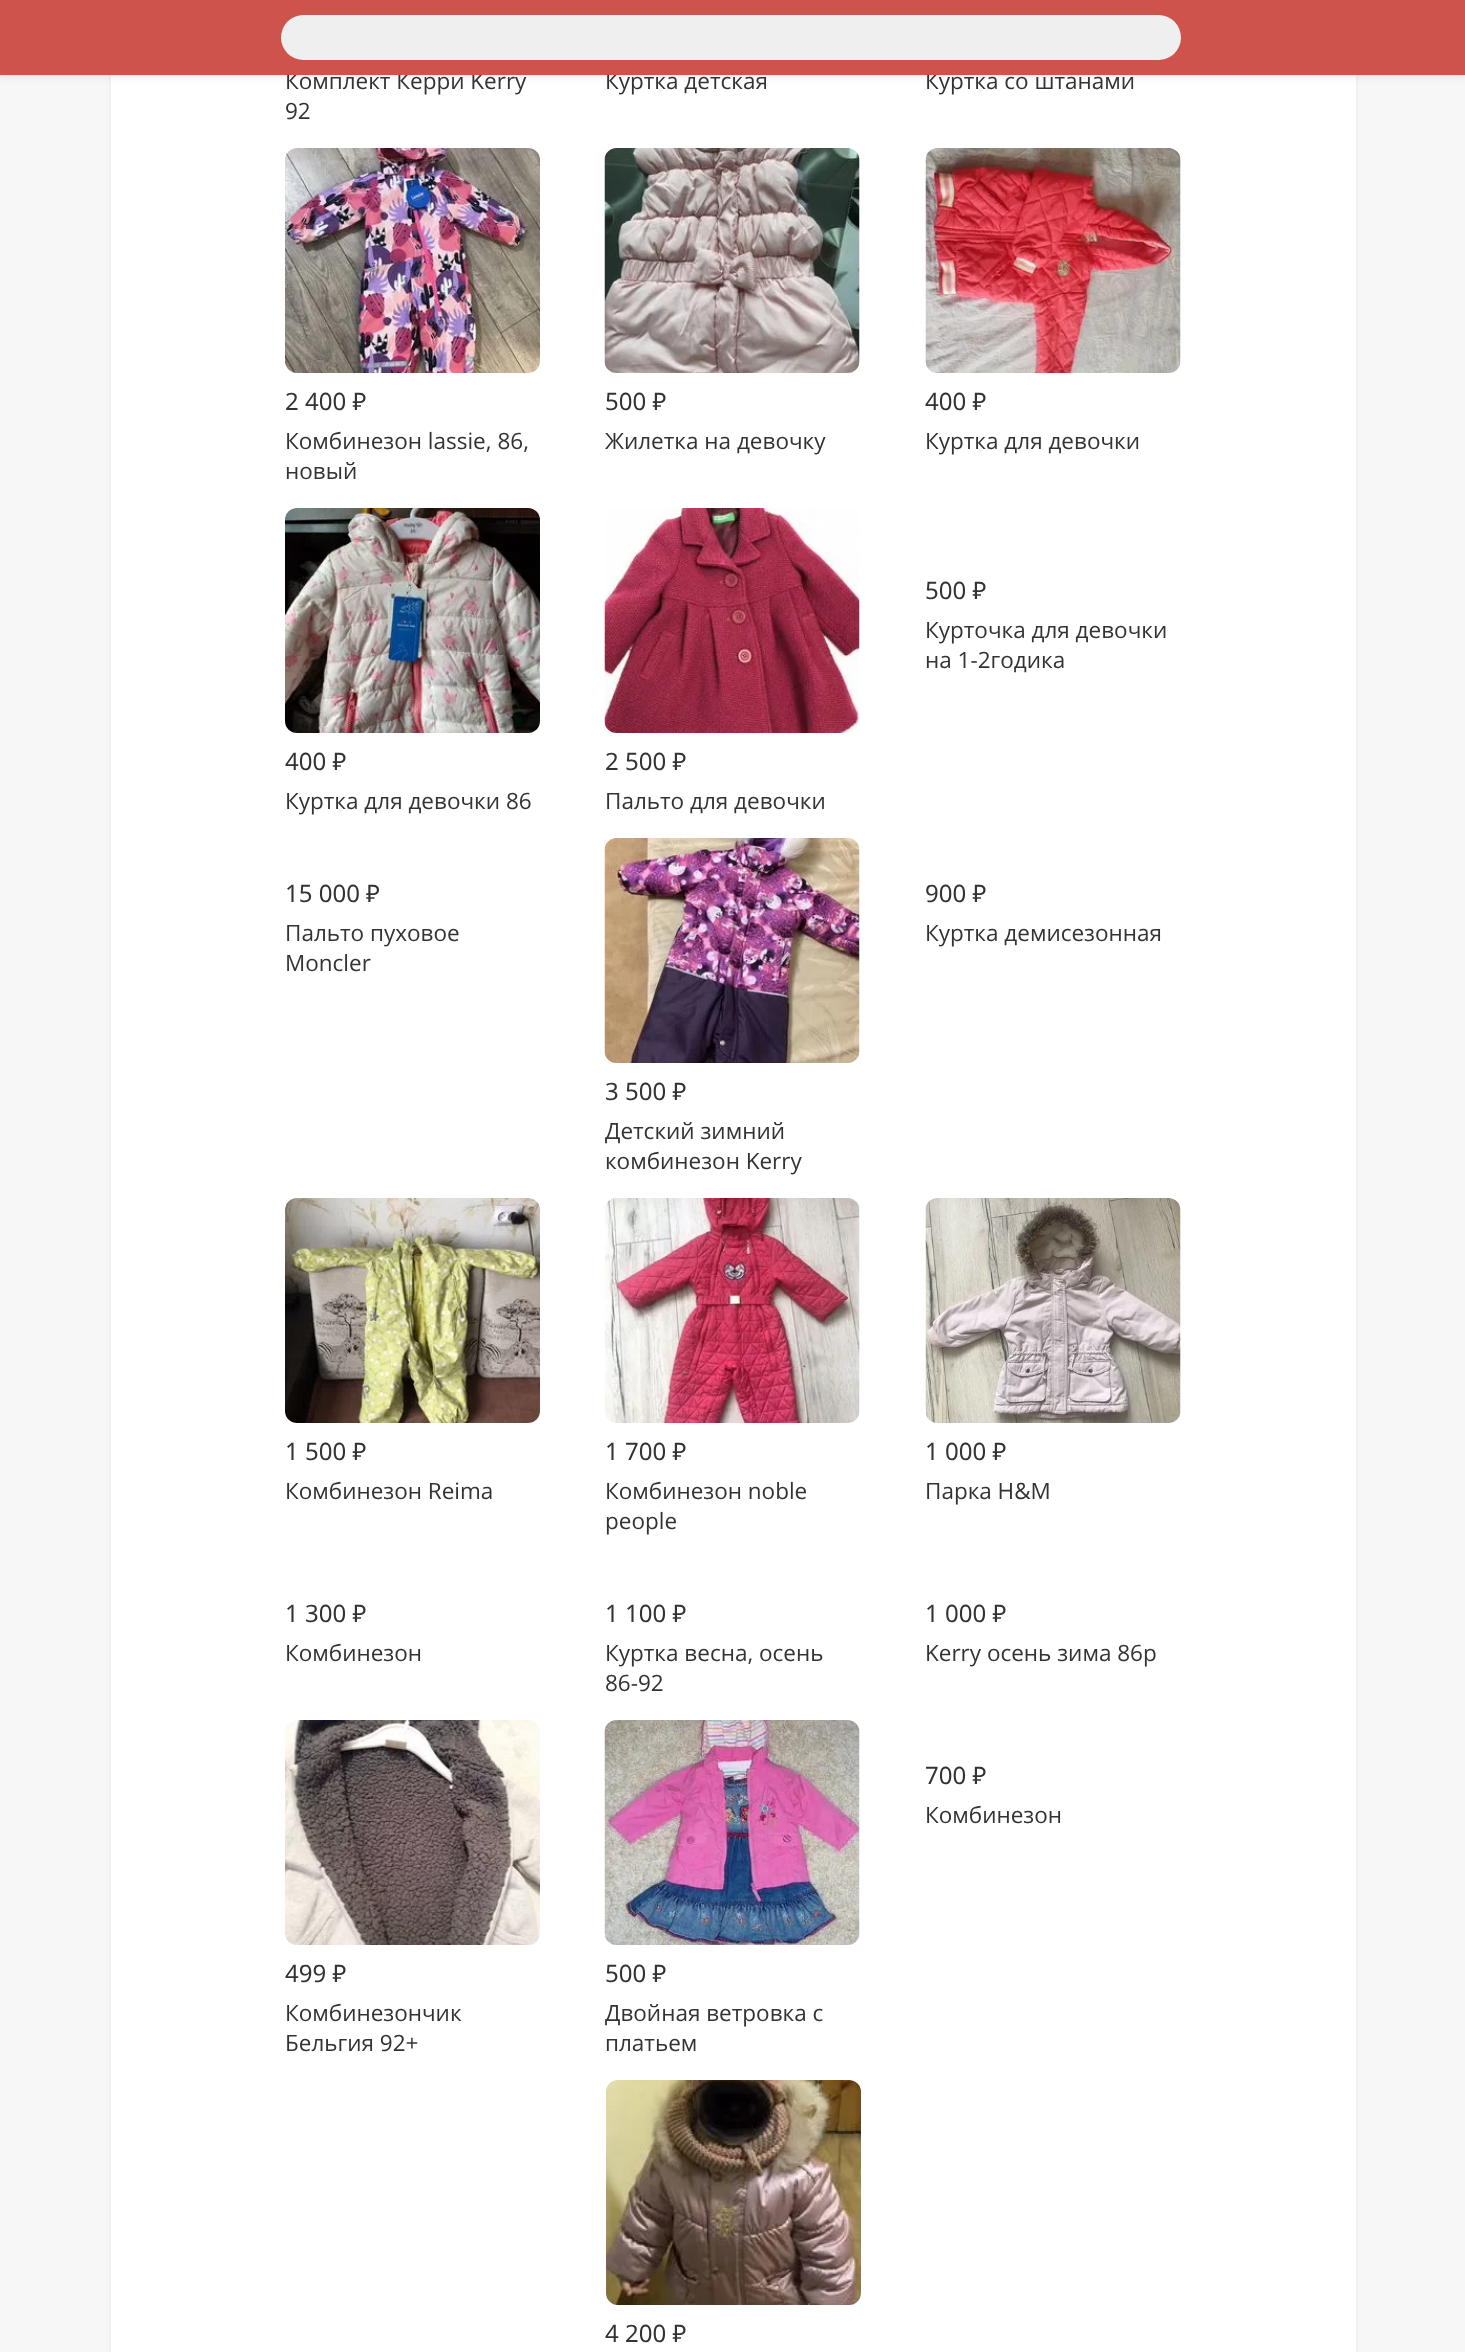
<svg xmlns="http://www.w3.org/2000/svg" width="1465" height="2352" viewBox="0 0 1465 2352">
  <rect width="100%" height="100%" fill="#f7f7f7"/>
  <rect x="111" y="-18" width="1245" height="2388" rx="12" fill="#00000014" filter="blur(2px)"/>
  <path d="M111 75h1245v2277H111z" fill="#fff"/>
  <path d="M-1 0h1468v78H-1z" fill="#0000000f" filter="blur(4.5px)"/>
  <image x="285" y="148" width="255" height="225" href="img/1.png"/>
  <image x="604" y="148" width="256" height="225" href="img/2.png"/>
  <image x="925" y="148" width="256" height="225" href="img/3.png"/>
  <image x="285" y="508" width="255" height="225" href="img/4.png"/>
  <image x="604" y="508" width="256" height="225" href="img/5.png"/>
  <image x="604" y="838" width="256" height="225" href="img/6.png"/>
  <image x="285" y="1198" width="255" height="225" href="img/7.png"/>
  <image x="604" y="1198" width="256" height="225" href="img/8.png"/>
  <image x="925" y="1198" width="256" height="225" href="img/9.png"/>
  <image x="285" y="1720" width="255" height="225" href="img/10.png"/>
  <image x="604" y="1720" width="256" height="225" href="img/11.png"/>
  <image x="606" y="2080" width="255" height="225" href="img/12.png"/>
  <g font-family="Open Sans" font-size="22.5" fill="#333">
    <text x="285" y="89">Комплект Керри Kerry</text>
    <text x="285" y="119">92</text>
    <text x="605" y="89">Куртка детская</text>
    <text x="925" y="89">Куртка со штанами</text>
  </g>
  <path d="M0 0h1465v75H0z" fill="#ce534d"/>
  <rect x="281" y="15" width="900" height="45" rx="22.5" fill="#efefef"/>
  <text x="285" y="410" font-family="Noto Sans" font-size="24" fill="#333">2 400 ₽</text>
  <g font-family="Open Sans" font-size="22.5" fill="#333">
    <text x="285" y="449">Комбинезон lassie, 86,</text>
    <text x="285" y="479">новый</text>
  </g>
  <text x="605" y="410" font-family="Noto Sans" font-size="24" fill="#333">500 ₽</text>
  <text x="605" y="449" font-family="Open Sans" font-size="22.5" fill="#333">Жилетка на девочку</text>
  <text x="925" y="410" font-family="Noto Sans" font-size="24" fill="#333">400 ₽</text>
  <text x="925" y="449" font-family="Open Sans" font-size="22.5" fill="#333">Куртка для девочки</text>
  <text x="925" y="599" font-family="Noto Sans" font-size="24" fill="#333">500 ₽</text>
  <g font-family="Open Sans" font-size="22.5" fill="#333">
    <text x="925" y="638">Курточка для девочки</text>
    <text x="925" y="668">на 1-2годика</text>
  </g>
  <text x="285" y="770" font-family="Noto Sans" font-size="24" fill="#333">400 ₽</text>
  <text x="285" y="809" font-family="Open Sans" font-size="22.5" fill="#333">Куртка для девочки 86</text>
  <text x="605" y="770" font-family="Noto Sans" font-size="24" fill="#333">2 500 ₽</text>
  <text x="605" y="809" font-family="Open Sans" font-size="22.5" fill="#333">Пальто для девочки</text>
  <text x="285" y="902" font-family="Noto Sans" font-size="24" fill="#333">15 000 ₽</text>
  <g font-family="Open Sans" font-size="22.5" fill="#333">
    <text x="285" y="941">Пальто пуховое</text>
    <text x="285" y="971">Moncler</text>
  </g>
  <text x="925" y="902" font-family="Noto Sans" font-size="24" fill="#333">900 ₽</text>
  <text x="925" y="941" font-family="Open Sans" font-size="22.5" fill="#333">Куртка демисезонная</text>
  <text x="605" y="1100" font-family="Noto Sans" font-size="24" fill="#333">3 500 ₽</text>
  <g font-family="Open Sans" font-size="22.5" fill="#333">
    <text x="605" y="1139">Детский зимний</text>
    <text x="605" y="1169">комбинезон Kerry</text>
  </g>
  <text x="285" y="1460" font-family="Noto Sans" font-size="24" fill="#333">1 500 ₽</text>
  <text x="285" y="1499" font-family="Open Sans" font-size="22.5" fill="#333">Комбинезон Reima</text>
  <text x="605" y="1460" font-family="Noto Sans" font-size="24" fill="#333">1 700 ₽</text>
  <g font-family="Open Sans" font-size="22.5" fill="#333">
    <text x="605" y="1499">Комбинезон noble</text>
    <text x="605" y="1529">people</text>
  </g>
  <text x="925" y="1460" font-family="Noto Sans" font-size="24" fill="#333">1 000 ₽</text>
  <text x="925" y="1499" font-family="Open Sans" font-size="22.5" fill="#333">Парка H&amp;M</text>
  <text x="285" y="1622" font-family="Noto Sans" font-size="24" fill="#333">1 300 ₽</text>
  <text x="285" y="1661" font-family="Open Sans" font-size="22.5" fill="#333">Комбинезон</text>
  <text x="605" y="1622" font-family="Noto Sans" font-size="24" fill="#333">1 100 ₽</text>
  <g font-family="Open Sans" font-size="22.5" fill="#333">
    <text x="605" y="1661">Куртка весна, осень</text>
    <text x="605" y="1691">86-92</text>
  </g>
  <text x="925" y="1622" font-family="Noto Sans" font-size="24" fill="#333">1 000 ₽</text>
  <text x="925" y="1661" font-family="Open Sans" font-size="22.5" fill="#333">Kerry осень зима 86р</text>
  <text x="925" y="1784" font-family="Noto Sans" font-size="24" fill="#333">700 ₽</text>
  <text x="925" y="1823" font-family="Open Sans" font-size="22.5" fill="#333">Комбинезон</text>
  <text x="285" y="1982" font-family="Noto Sans" font-size="24" fill="#333">499 ₽</text>
  <g font-family="Open Sans" font-size="22.5" fill="#333">
    <text x="285" y="2021">Комбинезончик</text>
    <text x="285" y="2051">Бельгия 92+</text>
  </g>
  <text x="605" y="1982" font-family="Noto Sans" font-size="24" fill="#333">500 ₽</text>
  <g font-family="Open Sans" font-size="22.5" fill="#333">
    <text x="605" y="2021">Двойная ветровка с</text>
    <text x="605" y="2051">платьем</text>
  </g>
  <text x="605" y="2342" font-family="Noto Sans" font-size="24" fill="#333">4 200 ₽</text>
</svg>
